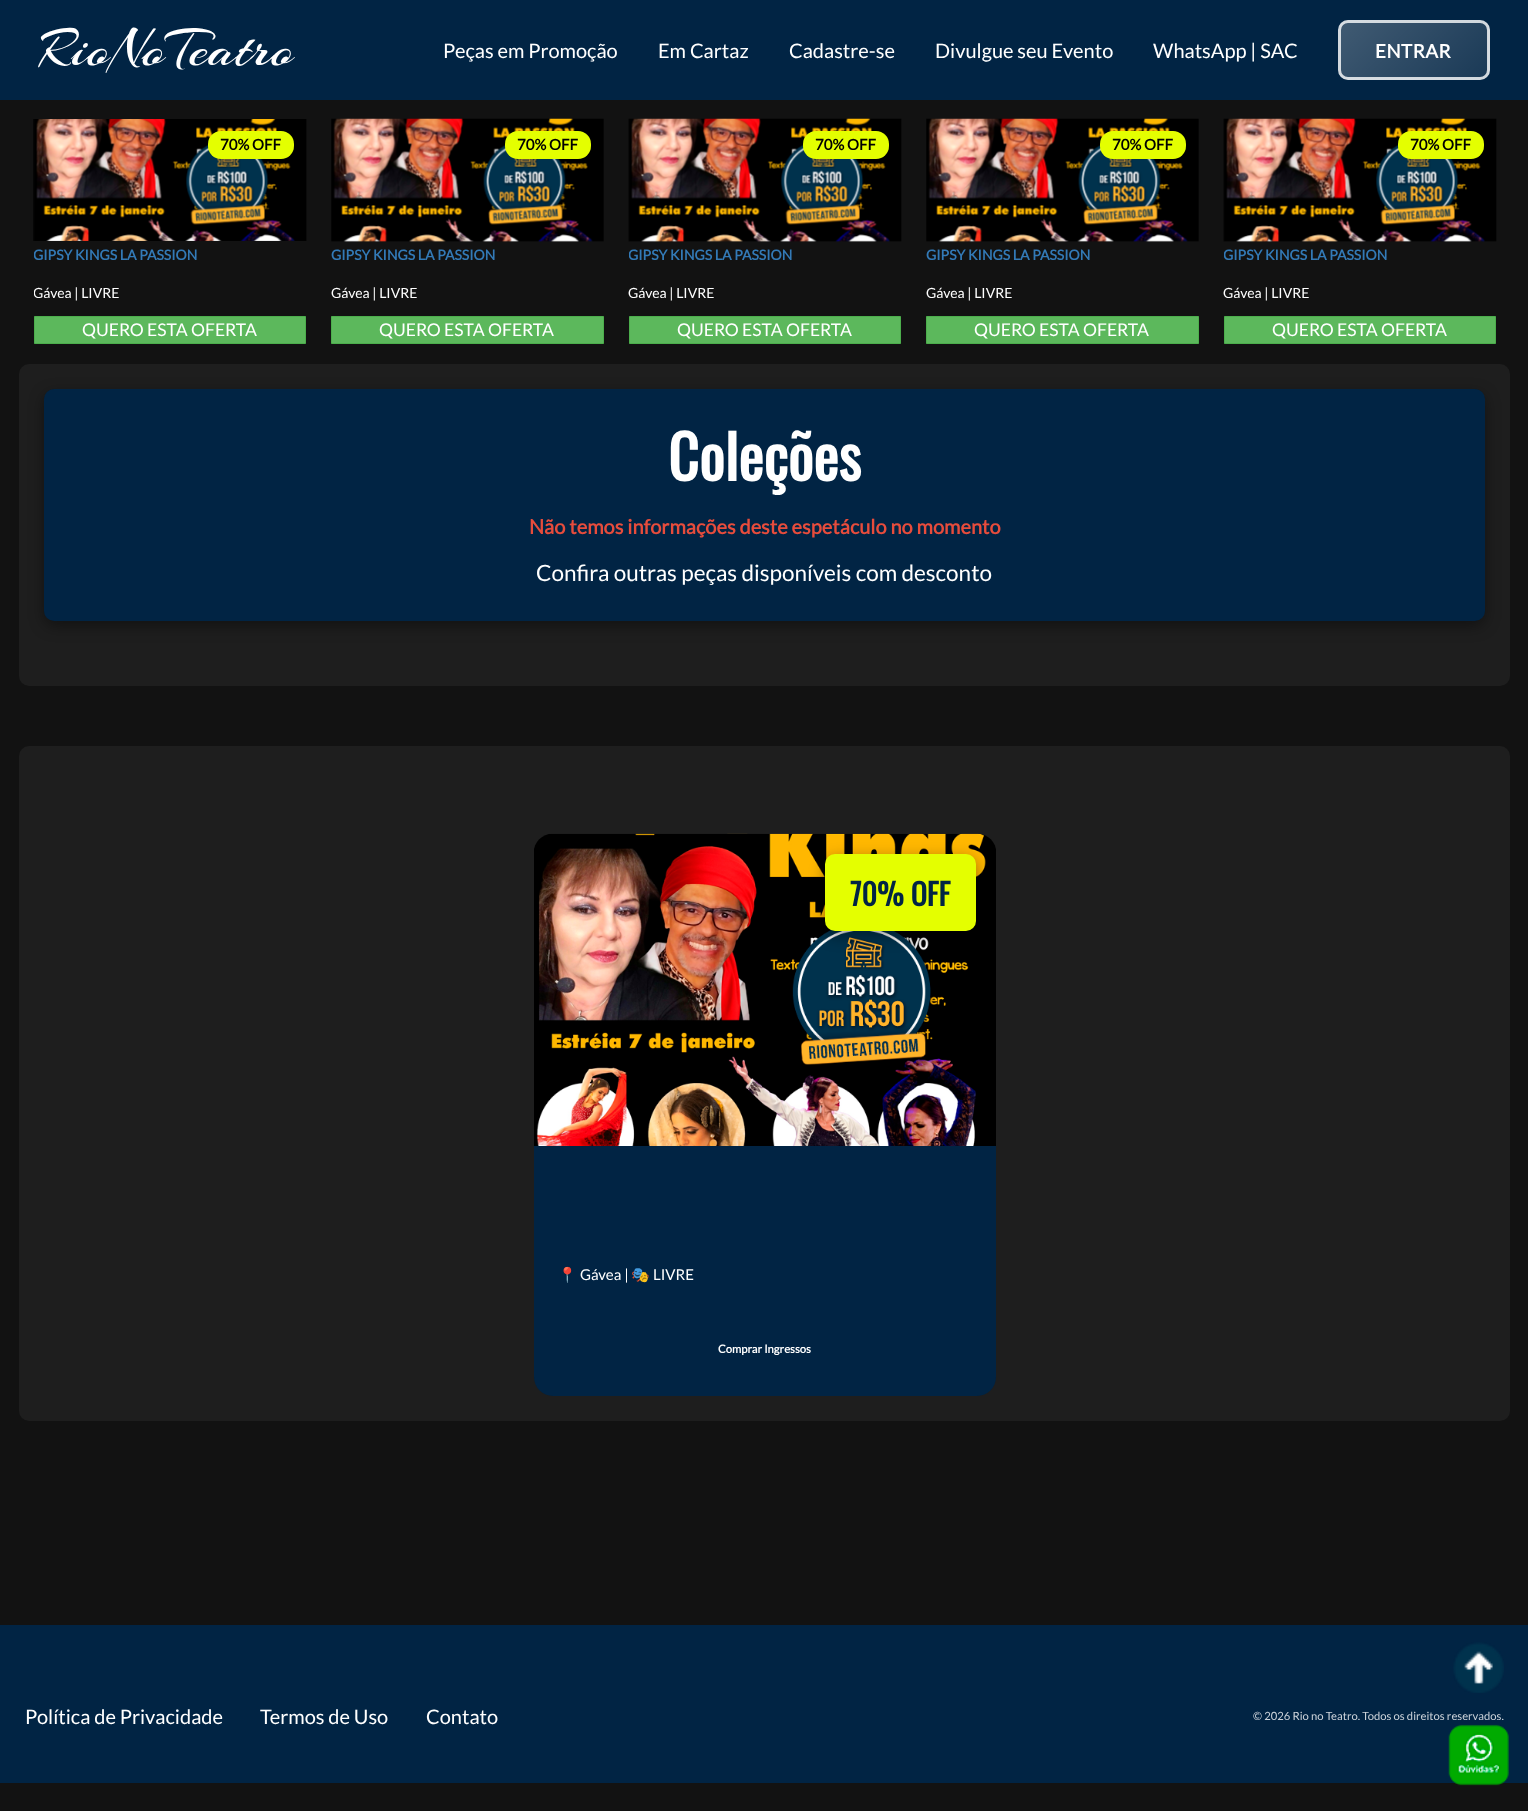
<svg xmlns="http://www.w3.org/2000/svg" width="1528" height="1811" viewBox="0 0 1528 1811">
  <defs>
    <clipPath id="clip1"><rect x="1338" y="20" width="152" height="60" rx="10"/></clipPath>
    <linearGradient id="g1" gradientUnits="userSpaceOnUse" x1="1363" y1="-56" x2="1464" y2="46"><stop offset="0" stop-color="#405b73"/><stop offset="1" stop-color="#1a3a57"/></linearGradient>
    <linearGradient id="g2" gradientUnits="userSpaceOnUse" x1="1216" y1="-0.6" x2="1317" y2="101"><stop offset="0" stop-color="#415b73"/><stop offset="1" stop-color="#1a3a57"/></linearGradient>
    <linearGradient id="g3" gradientUnits="userSpaceOnUse" x1="1363" y1="-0.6" x2="1464" y2="101"><stop offset="0" stop-color="#fff" stop-opacity="0.25"/><stop offset="1" stop-color="#fff" stop-opacity="0.1"/></linearGradient>
    <linearGradient id="g4" gradientUnits="userSpaceOnUse" x1="1511" y1="-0.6" x2="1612" y2="101"><stop offset="0" stop-color="#405b73"/><stop offset="1" stop-color="#1a3a57"/></linearGradient>
    <linearGradient id="g5" gradientUnits="userSpaceOnUse" x1="1363" y1="54" x2="1464" y2="156"><stop offset="0" stop-color="#fff" stop-opacity="0.25"/><stop offset="1" stop-color="#fff" stop-opacity="0.1"/></linearGradient>
    <clipPath id="clip2"><path d="M34 248h272v15H34z"/></clipPath>
    <clipPath id="clip3"><path d="M34 119h1462v225H34z"/></clipPath>
    <clipPath id="clip4"><path d="M629 248h272v15H629z"/></clipPath>
    <clipPath id="clip5"><path d="M1224 248h272v15H1224z"/></clipPath>
  </defs>
  <rect width="100%" height="100%" fill="#121212"/>
  <path d="M0 0h1528v100H0z" fill="#012444"/>
  <g clip-path="url(#clip1)">
    <path d="M1340 20h148v3H1340z" fill="url(#g1)"/>
    <path d="M1338 23h2v55H1338z" fill="url(#g2)"/>
    <path d="M1340 23h148v55H1340z" fill="url(#g3)"/>
    <path d="M1488 23h2v55H1488z" fill="url(#g4)"/>
    <path d="M1340 78h148v2H1340z" fill="url(#g5)"/>
  </g>
  <rect x="1339.5" y="21.5" width="149" height="57" rx="8.5" fill="none" stroke="#ffffffcc" stroke-width="3"/>
  <image x="33" y="119" width="274" height="122" href="img/1.png"/>
  <rect x="208" y="131" width="86" height="28" rx="13" fill="#e4ff00"/>
  <path d="M34.5 316.5h271v27H34.5z" fill="#5cb85c" stroke="#4cae4c"/>
  <image x="331" y="118" width="273" height="124" href="img/2.png"/>
  <rect x="505" y="131" width="86" height="28" rx="13" fill="#e4ff00"/>
  <path d="M331.5 316.5h272v27H331.5z" fill="#5cb85c" stroke="#4cae4c"/>
  <image x="628" y="118" width="274" height="124" href="img/3.png"/>
  <rect x="803" y="131" width="86" height="28" rx="13" fill="#e4ff00"/>
  <path d="M629.5 316.5h271v27H629.5z" fill="#5cb85c" stroke="#4cae4c"/>
  <image x="926" y="118" width="273" height="124" href="img/2.png"/>
  <rect x="1100" y="131" width="86" height="28" rx="13" fill="#e4ff00"/>
  <path d="M926.5 316.5h272v27H926.5z" fill="#5cb85c" stroke="#4cae4c"/>
  <image x="1223" y="118" width="274" height="124" href="img/3.png"/>
  <rect x="1398" y="131" width="86" height="28" rx="13" fill="#e4ff00"/>
  <path d="M1224.5 316.5h271v27H1224.5z" fill="#5cb85c" stroke="#4cae4c"/>
  <rect x="19" y="364" width="1491" height="322" rx="10" fill="#1e1e1e"/>
  <rect x="44" y="394" width="1441" height="232" rx="10" fill="#00000066" filter="blur(7.5px)"/>
  <rect x="44" y="389" width="1441" height="232" rx="10" fill="#012444"/>
  <rect x="19" y="746" width="1491" height="675" rx="10" fill="#1e1e1e"/>
  <image x="534" y="833" width="462" height="313" href="img/4.png"/>
  <rect x="825" y="859" width="151" height="77" rx="10" fill="#00000066" filter="blur(7.5px)"/>
  <rect x="825" y="854" width="151" height="77" rx="10" fill="#e4ff00"/>
  <path d="M534 1146H996V1377C996 1387.5 987.5 1396 977 1396H553C542.5 1396 534 1387.5 534 1377Z" fill="#012444"/>
  <path d="M0 1625h1528v158H0z" fill="#012444"/>
  <image x="1453" y="1642" width="51" height="51" href="img/5.png"/>
  <image x="1448" y="1724" width="61" height="62" href="img/6.png"/>
  <text x="39" y="65" font-family="Arizonia" font-size="56.25" fill="#fff">RioNoTeatro</text>
  <g font-family="Lato" font-size="20" fill="#fff">
    <text x="443" y="58">Peças em Promoção</text>
    <text x="658" y="58">Em Cartaz</text>
    <text x="789" y="58">Cadastre-se</text>
    <text x="935" y="58">Divulgue seu Evento</text>
    <text x="1153" y="58">WhatsApp | SAC</text>
  </g>
  <text x="1375" y="58" font-family="Lato" font-size="18.75" font-weight="bold" letter-spacing="0.5" fill="#fff">ENTRAR</text>
  <text x="220" y="150" font-family="Lato" font-size="15" font-weight="bold" fill="#000">70% OFF</text>
  <g clip-path="url(#clip2)">
    <text x="33" y="260" font-family="Lato" font-size="14" font-weight="bold" fill="#337ab7">GIPSY KINGS LA PASSION</text>
  </g>
  <g clip-path="url(#clip3)">
    <text x="33" y="298" font-family="Lato" font-size="14" fill="#fff">Gávea | LIVRE</text>
  </g>
  <text x="82" y="336" font-family="Lato" font-size="17.5" fill="#fff">QUERO ESTA OFERTA</text>
  <text x="517" y="150" font-family="Lato" font-size="15" font-weight="bold" fill="#000">70% OFF</text>
  <text x="331" y="260" font-family="Lato" font-size="14" font-weight="bold" fill="#337ab7">GIPSY KINGS LA PASSION</text>
  <text x="331" y="298" font-family="Lato" font-size="14" fill="#fff">Gávea | LIVRE</text>
  <text x="379" y="336" font-family="Lato" font-size="17.5" fill="#fff">QUERO ESTA OFERTA</text>
  <text x="815" y="150" font-family="Lato" font-size="15" font-weight="bold" fill="#000">70% OFF</text>
  <g clip-path="url(#clip4)">
    <text x="628" y="260" font-family="Lato" font-size="14" font-weight="bold" fill="#337ab7">GIPSY KINGS LA PASSION</text>
  </g>
  <text x="628" y="298" font-family="Lato" font-size="14" fill="#fff">Gávea | LIVRE</text>
  <text x="677" y="336" font-family="Lato" font-size="17.5" fill="#fff">QUERO ESTA OFERTA</text>
  <text x="1112" y="150" font-family="Lato" font-size="15" font-weight="bold" fill="#000">70% OFF</text>
  <text x="926" y="260" font-family="Lato" font-size="14" font-weight="bold" fill="#337ab7">GIPSY KINGS LA PASSION</text>
  <text x="926" y="298" font-family="Lato" font-size="14" fill="#fff">Gávea | LIVRE</text>
  <text x="974" y="336" font-family="Lato" font-size="17.5" fill="#fff">QUERO ESTA OFERTA</text>
  <text x="1410" y="150" font-family="Lato" font-size="15" font-weight="bold" fill="#000">70% OFF</text>
  <g clip-path="url(#clip5)">
    <text x="1223" y="260" font-family="Lato" font-size="14" font-weight="bold" fill="#337ab7">GIPSY KINGS LA PASSION</text>
  </g>
  <text x="1223" y="298" font-family="Lato" font-size="14" fill="#fff">Gávea | LIVRE</text>
  <text x="1272" y="336" font-family="Lato" font-size="17.5" fill="#fff">QUERO ESTA OFERTA</text>
  <text x="668" y="481" font-family="Oswald" font-size="60" font-weight="bold" fill="#fff">Coleções</text>
  <text x="529" y="534" font-family="Lato" font-size="20" font-weight="bold" fill="#e74c3c">Não temos informações deste espetáculo no momento</text>
  <text x="536" y="581" font-family="Lato" font-size="22.5" fill="#fff">Confira outras peças disponíveis com desconto</text>
  <text x="850" y="906" font-family="Oswald" font-size="30" font-weight="bold" fill="#012444">70% OFF</text>
  <text x="558" y="1280" font-family="Noto Color Emoji" font-size="15" fill="#fff">📍</text>
  <text x="580" y="1280" font-family="Lato" font-size="15" fill="#fff">Gávea |</text>
  <text x="631" y="1280" font-family="Noto Color Emoji" font-size="15" fill="#fff">🎭</text>
  <text x="653" y="1280" font-family="Lato" font-size="15" fill="#fff">LIVRE</text>
  <text x="718" y="1353" font-family="Lato" font-size="11.25" font-weight="bold" fill="#fff">Comprar Ingressos</text>
  <g font-family="Lato" font-size="20" fill="#fff">
    <text x="25" y="1724">Política de Privacidade</text>
    <text x="260" y="1724">Termos de Uso</text>
    <text x="426" y="1724">Contato</text>
  </g>
  <text x="1253" y="1720" font-family="Lato" font-size="11.25" fill="#ccd3da">© 2026 Rio no Teatro. Todos os direitos reservados.</text>
</svg>
